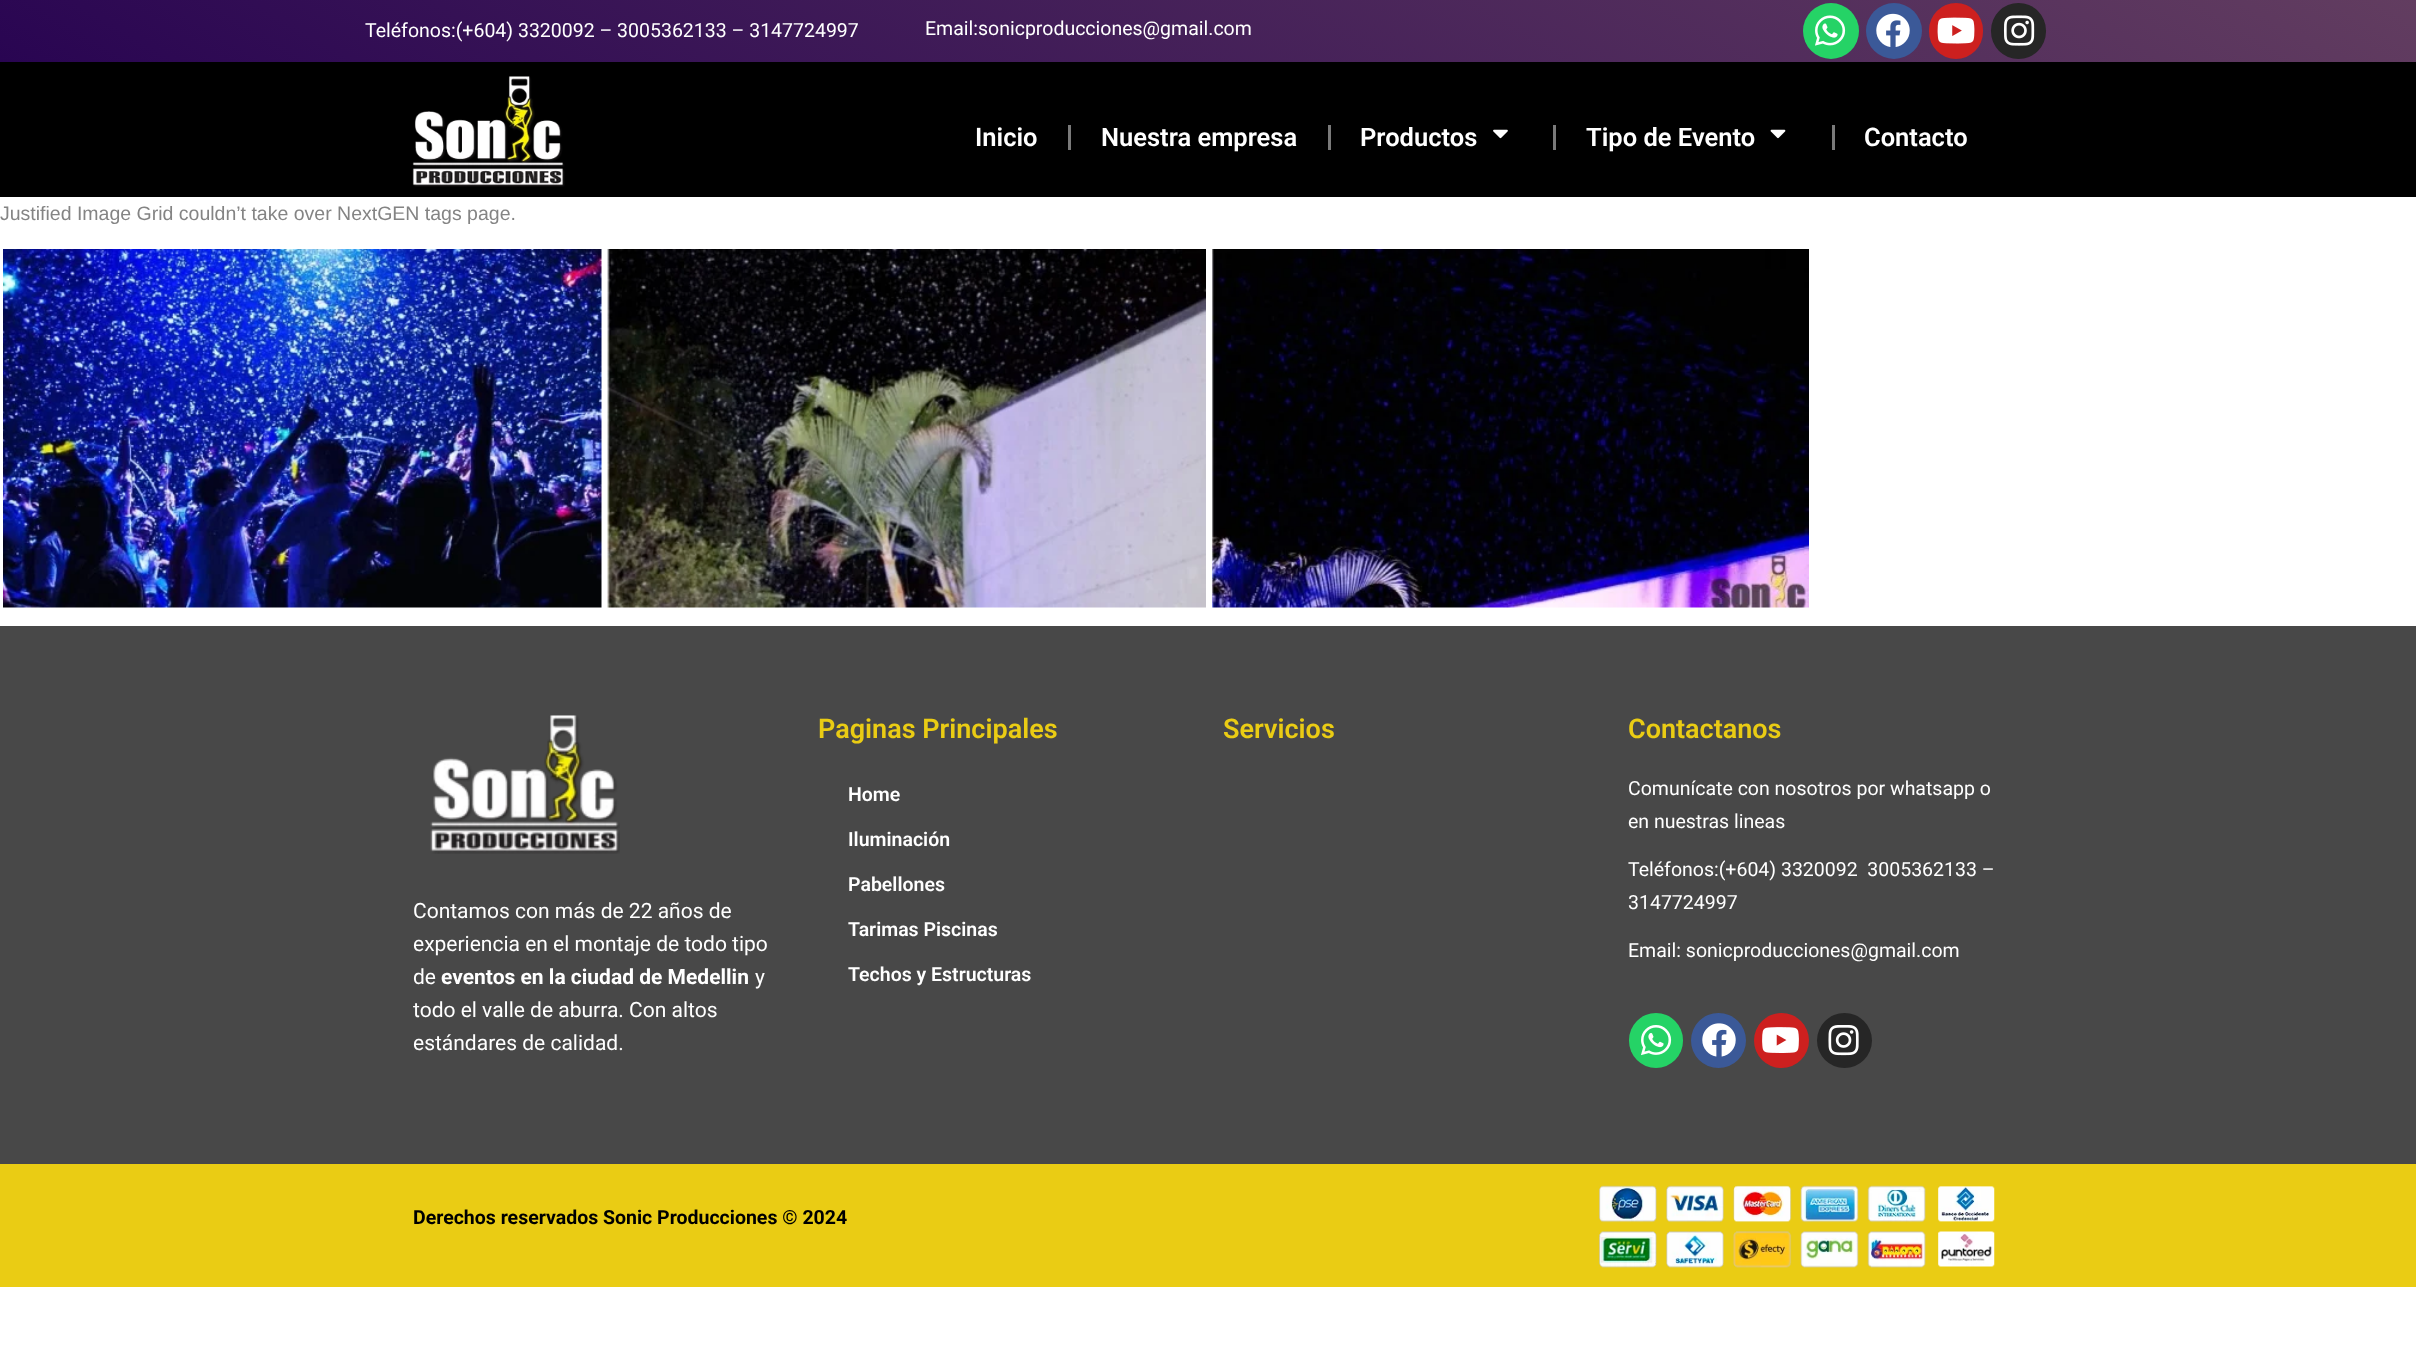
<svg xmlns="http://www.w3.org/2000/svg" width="2416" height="1360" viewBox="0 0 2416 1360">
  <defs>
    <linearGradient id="g1" gradientUnits="userSpaceOnUse" x1="1524" y1="-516" x2="893" y2="577"><stop offset="0" stop-color="#623d60"/><stop offset="1" stop-color="#290552"/></linearGradient>
  </defs>
  <rect width="100%" height="100%" fill="#fff"/>
  <path d="M0 0h2416v62H0z" fill="url(#g1)"/>
  <circle cx="1831" cy="31" r="28" fill="#25d366"/>
  <image x="1815" y="15" width="31" height="31" href="img/1.png"/>
  <circle cx="1894" cy="31" r="28" fill="#3b5998"/>
  <image x="1876" y="13" width="34" height="34" href="img/2.png"/>
  <rect x="1929" y="3" width="54" height="56" rx="27" fill="#cd201f"/>
  <image x="1937" y="17" width="38" height="27" href="img/3.png"/>
  <rect x="1991" y="3" width="55" height="56" rx="27.5" fill="#262626"/>
  <image x="2003" y="15" width="32" height="31" href="img/4.png"/>
  <path d="M0 62h2416v135H0z" fill="#000"/>
  <image x="412" y="76" width="153" height="111" href="img/5.png"/>
  <path d="M1068 125h3v25H1068z" fill="#7a7a7a"/>
  <path d="M1328 125h3v25H1328z" fill="#7a7a7a"/>
  <image x="1493" y="129" width="15" height="10" href="img/6.png"/>
  <path d="M1553 125h3v25H1553z" fill="#7a7a7a"/>
  <image x="1770" y="129" width="16" height="10" href="img/7.png"/>
  <path d="M1832 125h3v25H1832z" fill="#7a7a7a"/>
  <image x="3" y="249" width="599" height="359" href="img/8.png"/>
  <image x="607" y="249" width="599" height="359" href="img/9.png"/>
  <image x="1212" y="249" width="597" height="359" href="img/10.png"/>
  <path d="M0 626h2416v538H0z" fill="#484848"/>
  <image x="430" y="715" width="190" height="139" href="img/11.png"/>
  <rect x="1629" y="1013" width="54" height="55" rx="27" fill="#25d366"/>
  <image x="1641" y="1025" width="31" height="31" href="img/12.png"/>
  <circle cx="1718.5" cy="1040.5" r="27.5" fill="#3b5998"/>
  <image x="1702" y="1023" width="34" height="34" href="img/13.png"/>
  <circle cx="1781.5" cy="1040.5" r="27.5" fill="#cd201f"/>
  <image x="1762" y="1027" width="37" height="26" href="img/14.png"/>
  <circle cx="1844.5" cy="1040.5" r="27.5" fill="#262626"/>
  <image x="1828" y="1025" width="31" height="31" href="img/15.png"/>
  <path d="M0 1164h2416v123H0z" fill="#eacc14"/>
  <image x="1599" y="1185" width="396" height="83" href="img/16.png"/>
  <g font-family="Roboto" font-size="19.5" fill="#fff">
    <text x="365" y="37">Teléfonos:(+604) 3320092 – 3005362133 – 3147724997</text>
    <text x="925" y="35">Email:sonicproducciones@gmail.com</text>
  </g>
  <g font-family="Roboto" font-size="25.5" font-weight="600" fill="#fff">
    <text x="975" y="146">Inicio</text>
    <text x="1101" y="146">Nuestra empresa</text>
    <text x="1360" y="146">Productos</text>
    <text x="1586" y="146">Tipo de Evento</text>
    <text x="1864" y="146">Contacto</text>
  </g>
  <text x="0" y="220" font-family="Liberation Sans" font-size="19.5" fill="#848484">Justified Image Grid couldn’t take over NextGEN tags page.</text>
  <g font-family="Roboto" font-size="21" fill="#fff">
    <text x="413" y="918">Contamos con más de 22 años de</text>
    <text x="413" y="951">experiencia en el montaje de todo tipo</text>
    <text x="413" y="984">de</text>
  </g>
  <text x="441" y="984" font-family="Roboto" font-size="21" font-weight="bold" fill="#fff">eventos en la ciudad de Medellin</text>
  <g font-family="Roboto" font-size="21" fill="#fff">
    <text x="755" y="984">y</text>
    <text x="413" y="1017">todo el valle de aburra. Con altos</text>
    <text x="413" y="1050">estándares de calidad.</text>
  </g>
  <text x="818" y="738" font-family="Roboto" font-size="27" font-weight="600" fill="#eacc14">Paginas Principales</text>
  <g font-family="Roboto" font-size="19.5" font-weight="600" fill="#fff">
    <text x="848" y="801">Home</text>
    <text x="848" y="846">Iluminación</text>
    <text x="848" y="891">Pabellones</text>
    <text x="848" y="936">Tarimas Piscinas</text>
    <text x="848" y="981">Techos y Estructuras</text>
  </g>
  <g font-family="Roboto" font-size="27" font-weight="600" fill="#eacc14">
    <text x="1223" y="738">Servicios</text>
    <text x="1628" y="738">Contactanos</text>
  </g>
  <g font-family="Roboto" font-size="19.5" fill="#fff">
    <text x="1628" y="795">Comunícate con nosotros por whatsapp o</text>
    <text x="1628" y="828">en nuestras lineas</text>
    <text x="1628" y="876" xml:space="preserve">Teléfonos:(+604) 3320092  3005362133 –</text>
    <text x="1628" y="909">3147724997</text>
    <text x="1628" y="957">Email: sonicproducciones@gmail.com</text>
  </g>
  <text x="413" y="1224" font-family="Roboto" font-size="19.5" font-weight="bold" fill="#000">Derechos reservados Sonic Producciones © 2024</text>
</svg>
